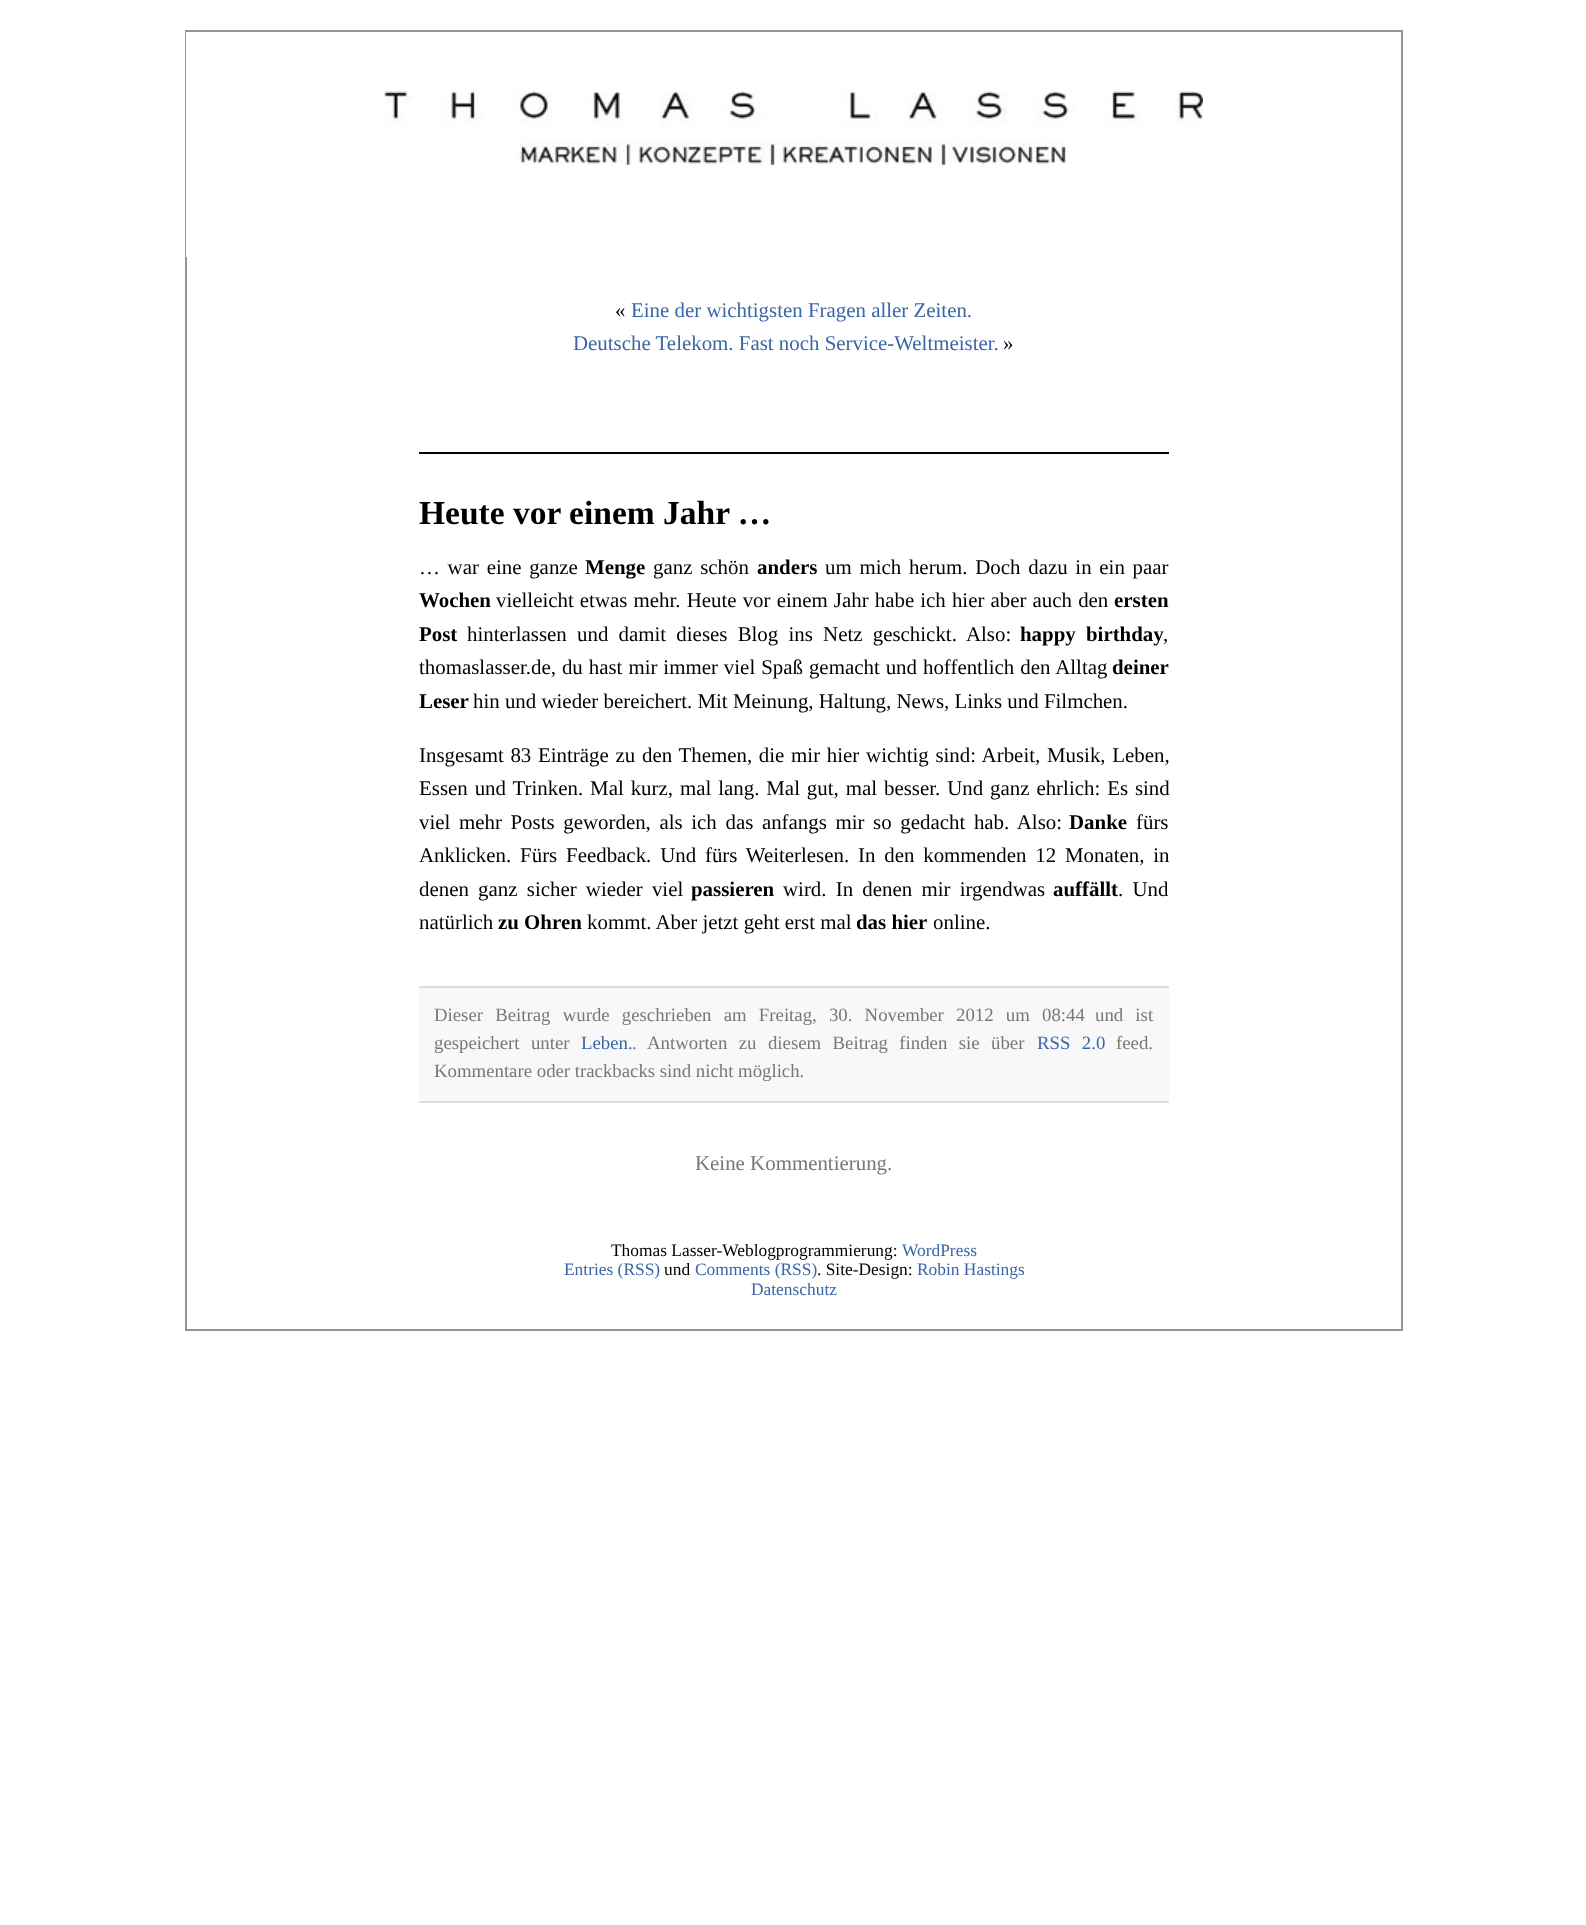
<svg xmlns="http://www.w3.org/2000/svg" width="1586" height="1925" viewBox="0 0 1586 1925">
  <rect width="100%" height="100%" fill="#fff"/>
  <path d="M186 31h1216v1299H186z" fill="none" stroke="#959596" stroke-width="2"/>
  <path d="M186 32h1v225H186z" fill="#fff"/>
  <image x="384" y="91" width="819" height="74" href="img/1.png"/>
  <path d="M419 452h750v2H419z" fill="#000"/>
  <path d="M419 988h750v113H419z" fill="#f8f8f8"/>
  <path d="M419 986h750v2H419z" fill="#ddd"/>
  <path d="M419 1101h750v2H419z" fill="#ddd"/>
  <text x="615" y="317" font-family="Liberation Serif" font-size="20.9" fill="#000">«</text>
  <g font-family="Liberation Serif" font-size="20.9" fill="#3a66a7">
    <text x="631" y="317">Eine der wichtigsten Fragen aller Zeiten.</text>
    <text x="573" y="350">Deutsche Telekom. Fast noch Service-Weltmeister.</text>
  </g>
  <text x="1003" y="350" font-family="Liberation Serif" font-size="20.9" fill="#000">»</text>
  <text x="419" y="524" font-family="Liberation Serif" font-size="33.5" font-weight="bold" fill="#000">Heute vor einem Jahr …</text>
  <text x="419" y="574" word-spacing="2.5" font-family="Liberation Serif" font-size="20.9" fill="#000">… war eine ganze</text>
  <text x="585" y="574" font-family="Liberation Serif" font-size="20.9" font-weight="bold" fill="#000">Menge</text>
  <text x="653" y="574" word-spacing="2.5" font-family="Liberation Serif" font-size="20.9" fill="#000">ganz schön</text>
  <text x="757" y="574" font-family="Liberation Serif" font-size="20.9" font-weight="bold" fill="#000">anders</text>
  <text x="825" y="574" word-spacing="2.5" font-family="Liberation Serif" font-size="20.9" fill="#000">um mich herum. Doch dazu in ein paar</text>
  <text x="419" y="607" font-family="Liberation Serif" font-size="20.9" font-weight="bold" fill="#000">Wochen</text>
  <text x="496" y="607" word-spacing="0.9" font-family="Liberation Serif" font-size="20.9" fill="#000">vielleicht etwas mehr. Heute vor einem Jahr habe ich hier aber auch den</text>
  <g font-family="Liberation Serif" font-size="20.9" font-weight="bold" fill="#000">
    <text x="1114" y="607">ersten</text>
    <text x="419" y="641">Post</text>
  </g>
  <text x="467" y="641" word-spacing="5" font-family="Liberation Serif" font-size="20.9" fill="#000">hinterlassen und damit dieses Blog ins Netz geschickt. Also:</text>
  <text x="1020" y="641" word-spacing="5" font-family="Liberation Serif" font-size="20.9" font-weight="bold" fill="#000">happy birthday</text>
  <g font-family="Liberation Serif" font-size="20.9" fill="#000">
    <text x="1163" y="641">,</text>
    <text x="419" y="674" word-spacing="0.75">thomaslasser.de, du hast mir immer viel Spaß gemacht und hoffentlich den Alltag</text>
  </g>
  <g font-family="Liberation Serif" font-size="20.9" font-weight="bold" fill="#000">
    <text x="1112" y="674">deiner</text>
    <text x="419" y="708">Leser</text>
  </g>
  <g font-family="Liberation Serif" font-size="20.9" fill="#000">
    <text x="473" y="708">hin und wieder bereichert. Mit Meinung, Haltung, News, Links und Filmchen.</text>
    <text x="419" y="762" word-spacing="1.5">Insgesamt 83 Einträge zu den Themen, die mir hier wichtig sind: Arbeit, Musik, Leben,</text>
    <text x="419" y="795" word-spacing="1.7">Essen und Trinken. Mal kurz, mal lang. Mal gut, mal besser. Und ganz ehrlich: Es sind</text>
    <text x="419" y="829" word-spacing="3.4">viel mehr Posts geworden, als ich das anfangs mir so gedacht hab. Also:</text>
  </g>
  <text x="1069" y="829" font-family="Liberation Serif" font-size="20.9" font-weight="bold" fill="#000">Danke</text>
  <g font-family="Liberation Serif" font-size="20.9" fill="#000">
    <text x="1136" y="829">fürs</text>
    <text x="419" y="862" word-spacing="3.6">Anklicken. Fürs Feedback. Und fürs Weiterlesen. In den kommenden 12 Monaten, in</text>
    <text x="419" y="896" word-spacing="4">denen ganz sicher wieder viel</text>
  </g>
  <text x="691" y="896" font-family="Liberation Serif" font-size="20.9" font-weight="bold" fill="#000">passieren</text>
  <text x="783" y="896" word-spacing="4" font-family="Liberation Serif" font-size="20.9" fill="#000">wird. In denen mir irgendwas</text>
  <text x="1053" y="896" font-family="Liberation Serif" font-size="20.9" font-weight="bold" fill="#000">auffällt</text>
  <g font-family="Liberation Serif" font-size="20.9" fill="#000">
    <text x="1118" y="896" word-spacing="4">. Und</text>
    <text x="419" y="929">natürlich</text>
  </g>
  <text x="498" y="929" font-family="Liberation Serif" font-size="20.9" font-weight="bold" fill="#000">zu Ohren</text>
  <text x="587" y="929" font-family="Liberation Serif" font-size="20.9" fill="#000">kommt. Aber jetzt geht erst mal</text>
  <text x="856" y="929" font-family="Liberation Serif" font-size="20.9" font-weight="bold" fill="#000">das hier</text>
  <text x="933" y="929" font-family="Liberation Serif" font-size="20.9" fill="#000">online.</text>
  <g font-family="Liberation Serif" font-size="18.8" fill="#777">
    <text x="434" y="1021" word-spacing="7.5">Dieser Beitrag wurde geschrieben am Freitag, 30. November 2012 um 08:44</text>
    <text x="1095" y="1021" word-spacing="7.5">und ist</text>
    <text x="434" y="1049" word-spacing="6.75">gespeichert unter</text>
  </g>
  <text x="581" y="1049" font-family="Liberation Serif" font-size="18.8" fill="#3a66a7">Leben.</text>
  <g font-family="Liberation Serif" font-size="18.8" fill="#777">
    <text x="632" y="1049">.</text>
    <text x="647" y="1049" word-spacing="6.75">Antworten zu diesem Beitrag finden sie über</text>
  </g>
  <text x="1037" y="1049" word-spacing="6.75" font-family="Liberation Serif" font-size="18.8" fill="#3a66a7">RSS 2.0</text>
  <g font-family="Liberation Serif" font-size="18.8" fill="#777">
    <text x="1116" y="1049">feed.</text>
    <text x="434" y="1077">Kommentare oder trackbacks sind nicht möglich.</text>
  </g>
  <text x="695" y="1170" font-family="Liberation Serif" font-size="20.9" fill="#777">Keine Kommentierung.</text>
  <text x="611" y="1256" font-family="Liberation Serif" font-size="17.4" fill="#000">Thomas Lasser-Weblogprogrammierung:</text>
  <g font-family="Liberation Serif" font-size="17.4" fill="#3a66a7">
    <text x="902" y="1256">WordPress</text>
    <text x="564" y="1275">Entries (RSS)</text>
  </g>
  <text x="664" y="1275" font-family="Liberation Serif" font-size="17.4" fill="#000">und</text>
  <text x="695" y="1275" font-family="Liberation Serif" font-size="17.4" fill="#3a66a7">Comments (RSS)</text>
  <text x="817" y="1275" font-family="Liberation Serif" font-size="17.4" fill="#000">. Site-Design:</text>
  <g font-family="Liberation Serif" font-size="17.4" fill="#3a66a7">
    <text x="917" y="1275">Robin Hastings</text>
    <text x="751" y="1295">Datenschutz</text>
  </g>
</svg>
